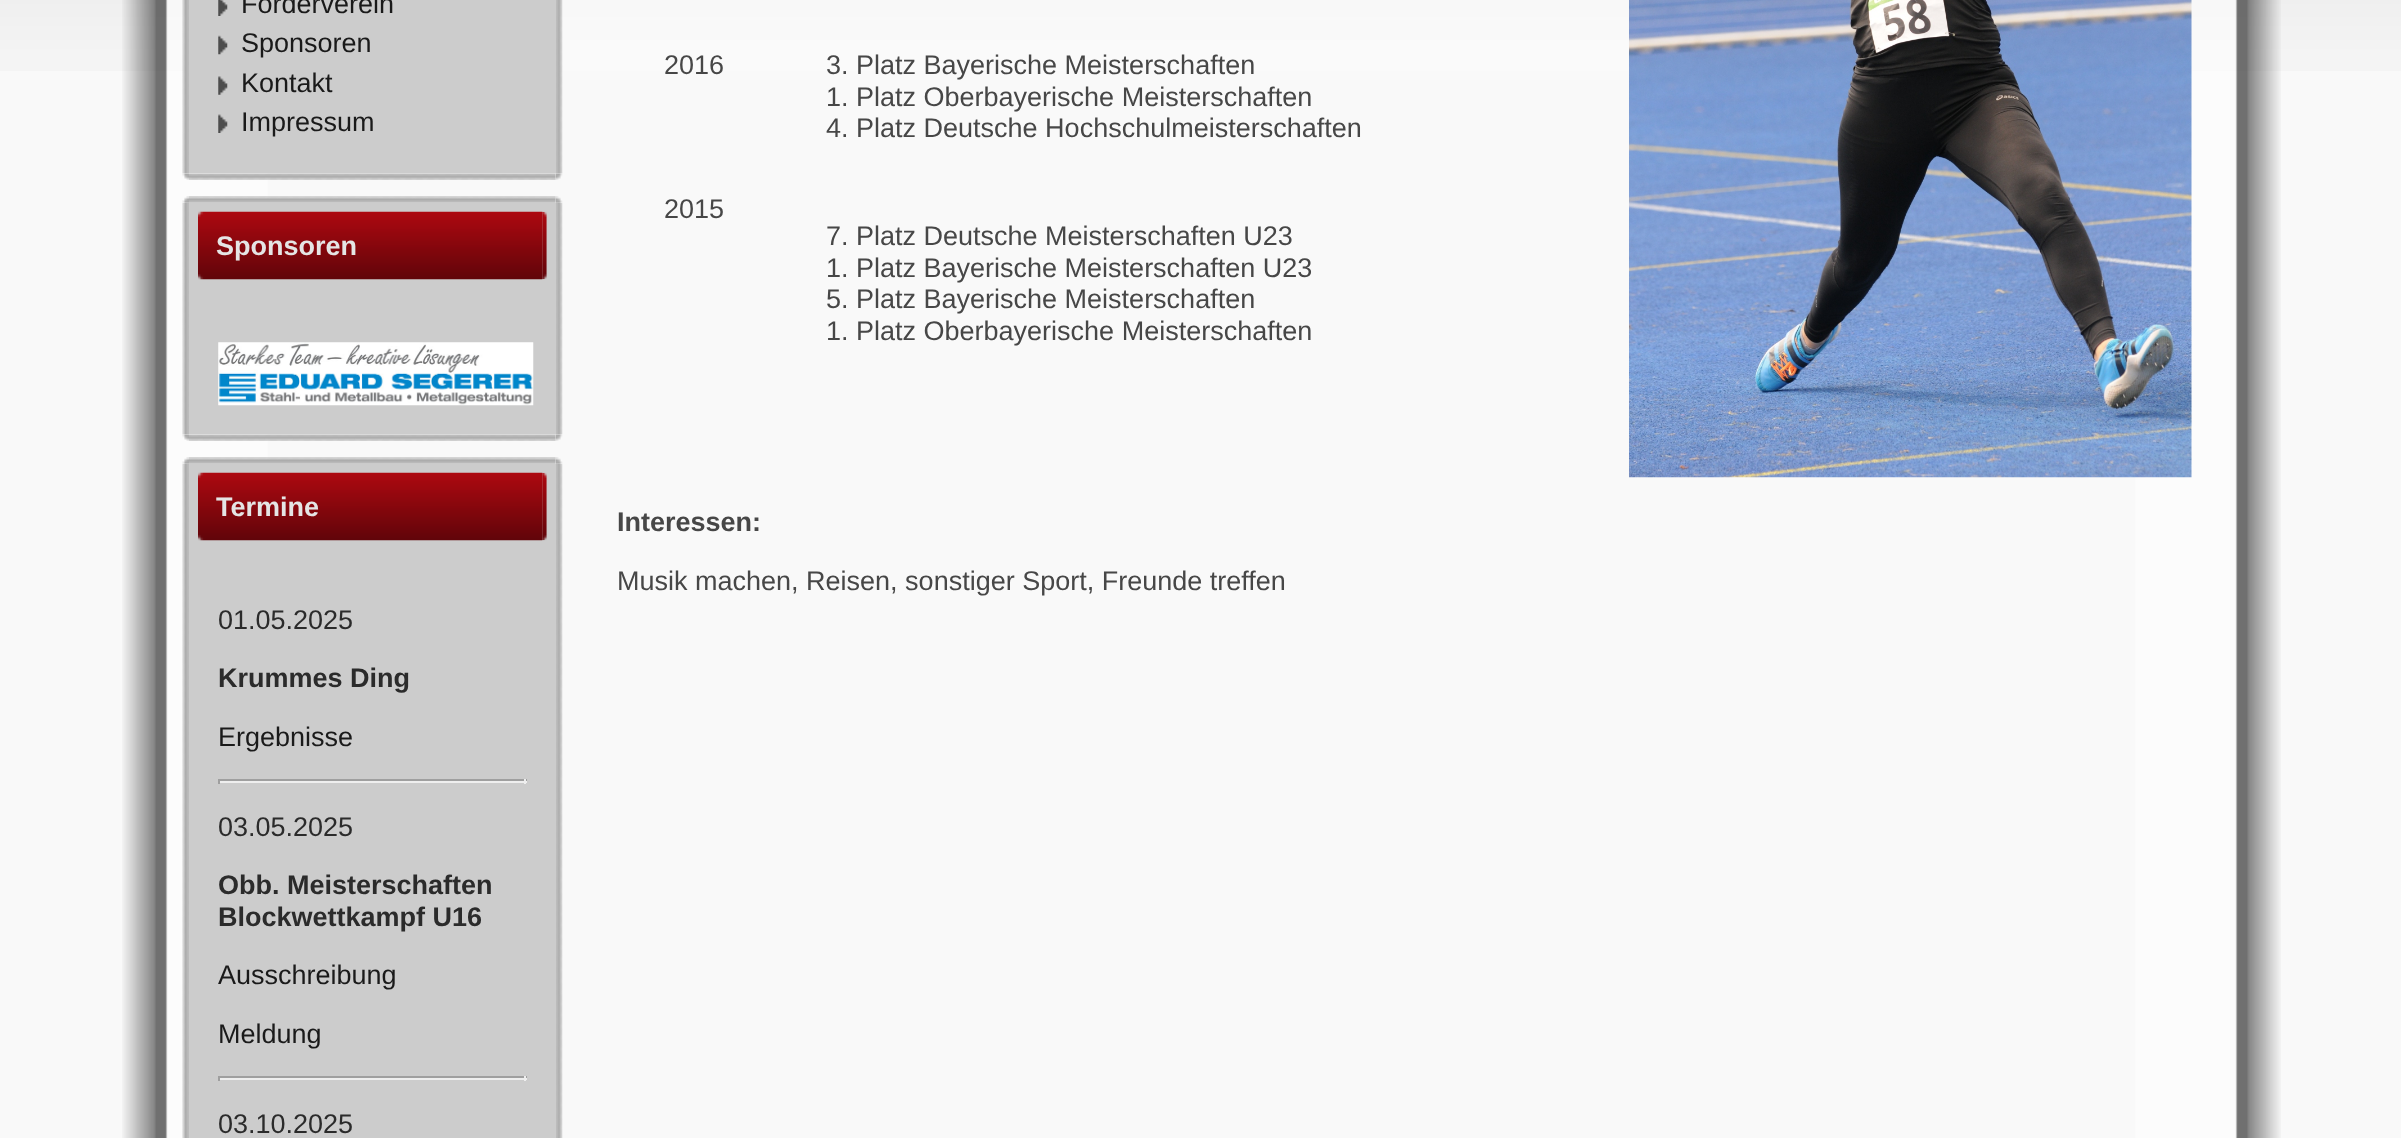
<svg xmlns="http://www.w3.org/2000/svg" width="2401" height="1138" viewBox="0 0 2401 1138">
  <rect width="100%" height="100%" fill="#f9f9f9"/>
  <image x="0" y="0" width="2401" height="62" href="img/1.png"/>
  <path d="M0 62h2401v9H0z" fill="#f4f4f4"/>
  <image x="122" y="0" width="146" height="1138" href="img/2.png"/>
  <image x="182" y="173" width="7" height="7" href="img/9.png"/>
  <image x="182" y="0" width="7" height="174" href="img/3.png"/>
  <image x="555" y="173" width="8" height="7" href="img/11.png"/>
  <image x="189" y="173" width="367" height="7" href="img/10.png"/>
  <path d="M559 0h1070v71H559z" fill="#ffffff8c"/>
  <image x="555" y="0" width="8" height="174" href="img/8.png"/>
  <path d="M189 0h367v173H189z" fill="#ccc"/>
  <image x="218" y="0" width="10" height="16" href="img/4.png"/>
  <image x="218" y="35" width="10" height="20" href="img/5.png"/>
  <image x="218" y="76" width="10" height="19" href="img/6.png"/>
  <image x="218" y="114" width="10" height="19" href="img/7.png"/>
  <image x="182" y="196" width="7" height="7" href="img/12.png"/>
  <image x="555" y="196" width="8" height="7" href="img/14.png"/>
  <image x="189" y="196" width="367" height="7" href="img/13.png"/>
  <image x="182" y="434" width="7" height="7" href="img/9.png"/>
  <image x="182" y="203" width="7" height="232" href="img/15.png"/>
  <image x="555" y="434" width="8" height="7" href="img/11.png"/>
  <image x="189" y="434" width="367" height="7" href="img/20.png"/>
  <image x="555" y="203" width="8" height="232" href="img/16.png"/>
  <path d="M189 203h367v231H189z" fill="#ccc"/>
  <image x="198" y="211" width="345" height="69" href="img/17.png"/>
  <image x="542" y="211" width="5" height="69" href="img/18.png"/>
  <image x="218" y="342" width="316" height="64" href="img/19.png"/>
  <image x="182" y="457" width="7" height="7" href="img/12.png"/>
  <image x="555" y="457" width="8" height="7" href="img/14.png"/>
  <image x="189" y="457" width="367" height="7" href="img/21.png"/>
  <image x="182" y="464" width="7" height="674" href="img/22.png"/>
  <path d="M189 464h367v674H189z" fill="#ccc"/>
  <image x="556" y="464" width="7" height="674" href="img/23.png"/>
  <image x="198" y="472" width="345" height="69" href="img/17.png"/>
  <image x="542" y="472" width="5" height="69" href="img/18.png"/>
  <path d="M218 779h309v2H218z" fill="#9f9f9f"/>
  <path d="M524 779h2v5H524z" fill="#eee"/>
  <path d="M218 781h309v2H218z" fill="#eee"/>
  <path d="M218 779h2v5H218z" fill="#9f9f9f"/>
  <path d="M218 1076h309v2H218z" fill="#9f9f9f"/>
  <path d="M524 1076h2v5H524z" fill="#eee"/>
  <path d="M218 1078h309v2H218z" fill="#eee"/>
  <path d="M218 1076h2v5H218z" fill="#9f9f9f"/>
  <image x="2135" y="0" width="146" height="1138" href="img/25.png"/>
  <image x="1629" y="0" width="563" height="478" href="img/24.png"/>
  <g font-family="Liberation Sans" font-size="27" fill="#1a1a1a">
    <text x="241" y="13">Förderverein</text>
    <text x="241" y="52">Sponsoren</text>
    <text x="241" y="92">Kontakt</text>
    <text x="241" y="131">Impressum</text>
  </g>
  <g font-family="Liberation Sans" font-size="27" font-weight="bold" fill="#e5e5e5">
    <text x="216" y="255">Sponsoren</text>
    <text x="216" y="516">Termine</text>
  </g>
  <text x="218" y="629" font-family="Liberation Sans" font-size="27" fill="#2b2b2b">01.05.2025</text>
  <text x="218" y="687" font-family="Liberation Sans" font-size="27" font-weight="bold" fill="#2b2b2b">Krummes Ding</text>
  <text x="218" y="746" font-family="Liberation Sans" font-size="27" fill="#1a1a1a">Ergebnisse</text>
  <text x="218" y="836" font-family="Liberation Sans" font-size="27" fill="#2b2b2b">03.05.2025</text>
  <g font-family="Liberation Sans" font-size="27" font-weight="bold" fill="#2b2b2b">
    <text x="218" y="894">Obb. Meisterschaften</text>
    <text x="218" y="926">Blockwettkampf U16</text>
  </g>
  <g font-family="Liberation Sans" font-size="27" fill="#1a1a1a">
    <text x="218" y="984">Ausschreibung</text>
    <text x="218" y="1043">Meldung</text>
  </g>
  <text x="218" y="1133" font-family="Liberation Sans" font-size="27" fill="#2b2b2b">03.10.2025</text>
  <g font-family="Liberation Sans" font-size="27" fill="#474747">
    <text x="664" y="74">2016</text>
    <text x="826" y="74">3. Platz Bayerische Meisterschaften</text>
    <text x="826" y="106">1. Platz Oberbayerische Meisterschaften</text>
    <text x="826" y="137">4. Platz Deutsche Hochschulmeisterschaften</text>
    <text x="664" y="218">2015</text>
    <text x="826" y="245">7. Platz Deutsche Meisterschaften U23</text>
    <text x="826" y="277">1. Platz Bayerische Meisterschaften U23</text>
    <text x="826" y="308">5. Platz Bayerische Meisterschaften</text>
    <text x="826" y="340">1. Platz Oberbayerische Meisterschaften</text>
  </g>
  <text x="617" y="531" font-family="Liberation Sans" font-size="27" font-weight="bold" fill="#474747">Interessen:</text>
  <text x="617" y="590" font-family="Liberation Sans" font-size="27" fill="#474747">Musik machen, Reisen, sonstiger Sport, Freunde treffen</text>
</svg>
